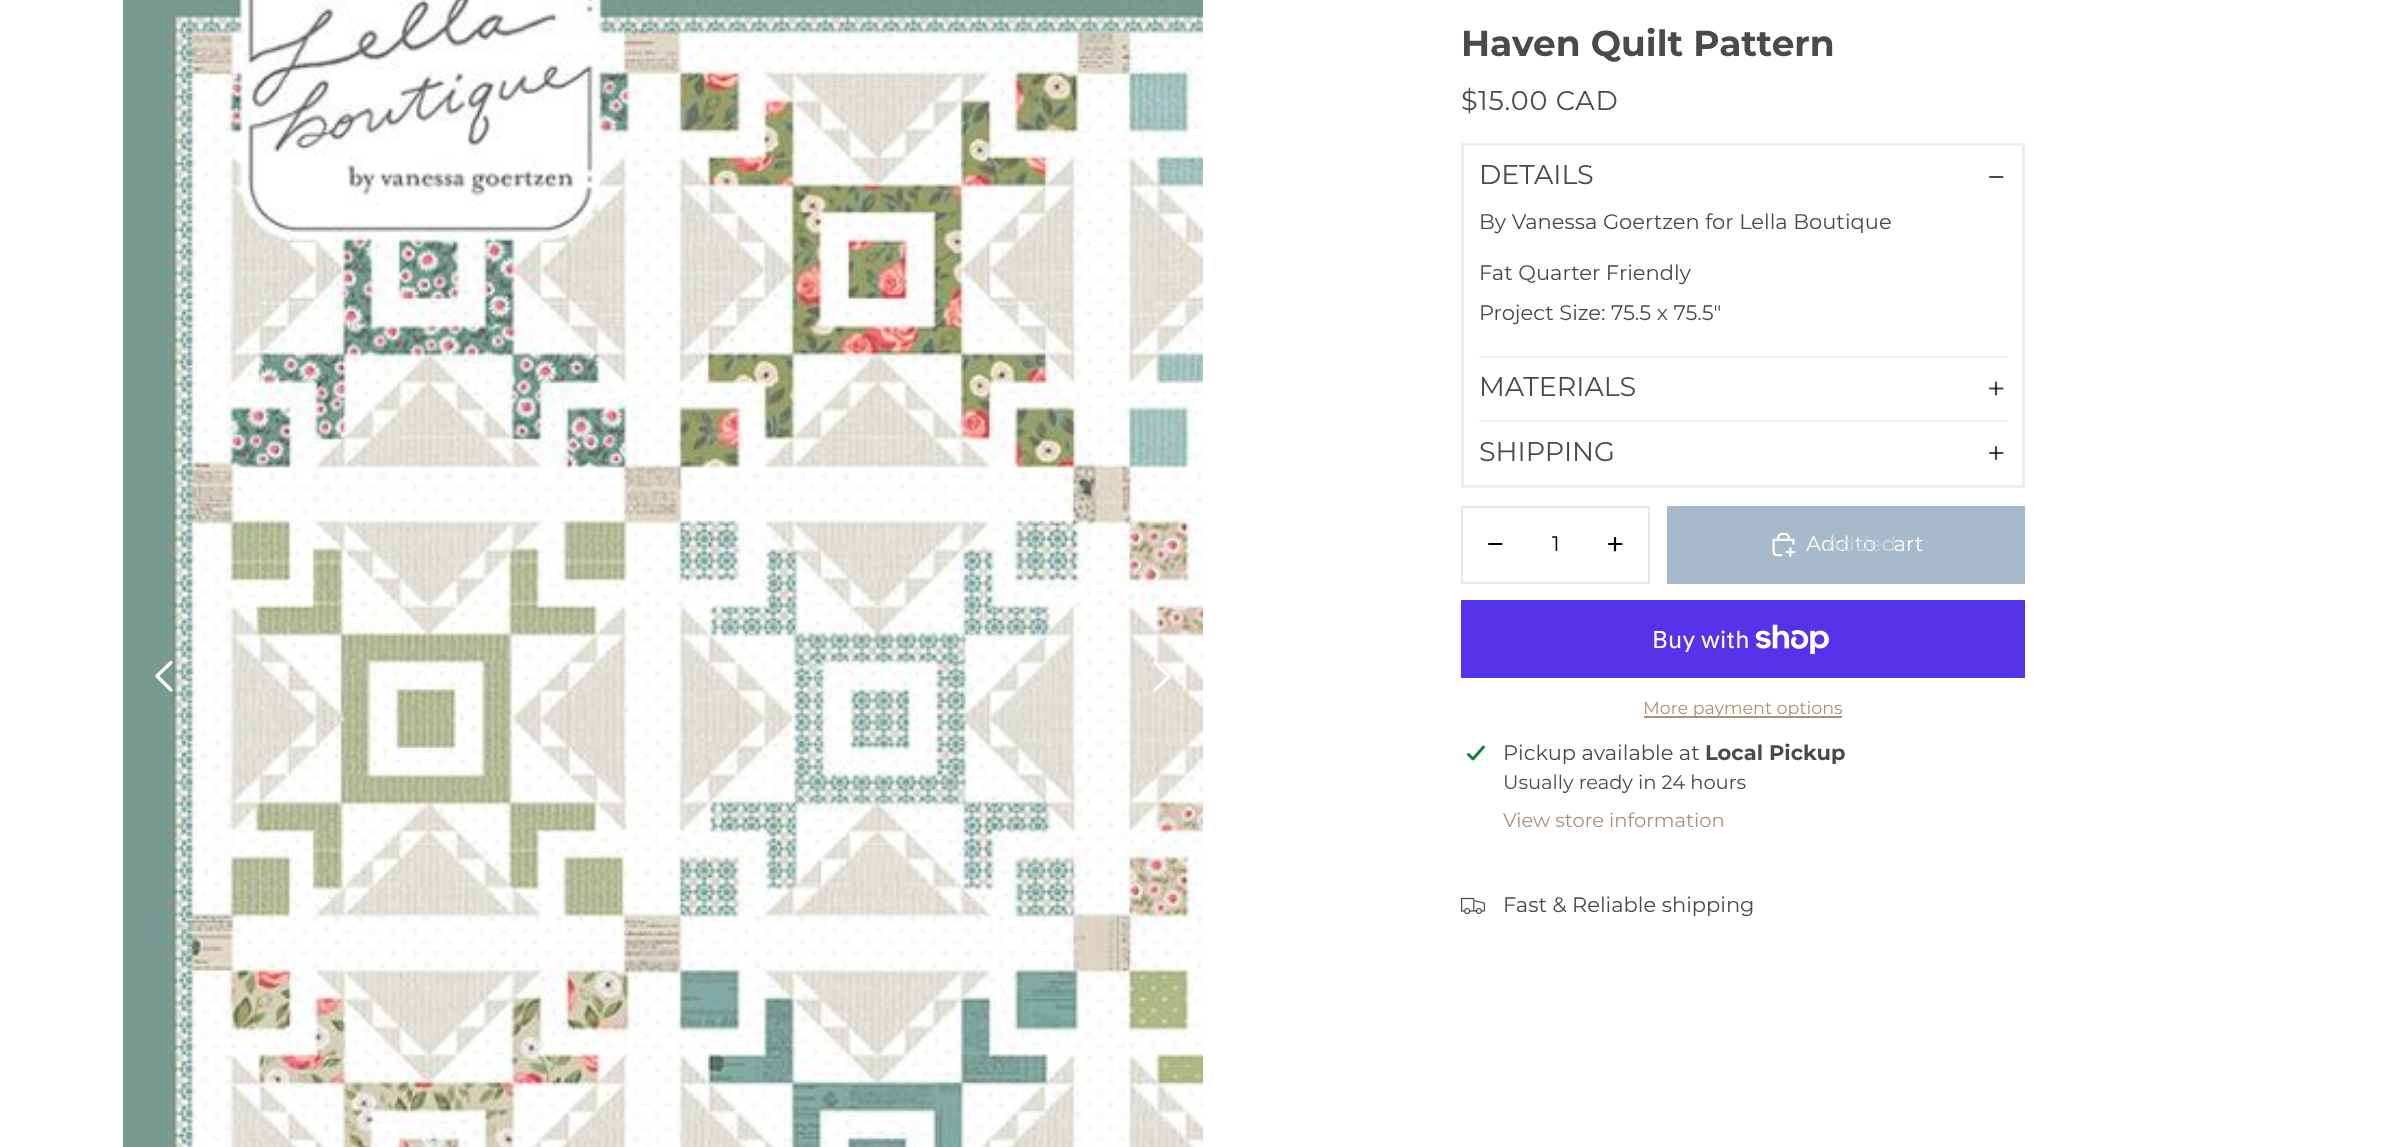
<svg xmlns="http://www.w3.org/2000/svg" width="2405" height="1147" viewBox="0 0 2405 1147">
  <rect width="100%" height="100%" fill="#fff"/>
  <image x="123" y="0" width="1080" height="1147" href="img/1.png"/>
  <path d="M171 662.5L157 676L171 690" fill="none" stroke="#fff" stroke-width="3.4" stroke-linecap="round" stroke-linejoin="round"/>
  <path d="M1155 662.5L1169 676.5L1155 690" fill="none" stroke="#fff" stroke-width="3.4" stroke-linecap="round" stroke-linejoin="round"/>
  <path d="M1462.5 144.5h561v342H1462.5z" fill="none" stroke="#efede5" stroke-width="3"/>
  <path d="M2002.5 177H1990" fill="none" stroke="#4a4a4a" stroke-width="2.2" stroke-linecap="round"/>
  <path d="M1479 356h528v2H1479z" fill="#efede5"/>
  <path d="M1990 388.5H2002.5" fill="none" stroke="#4a4a4a" stroke-width="2.2" stroke-linecap="round"/>
  <path d="M1996 382.5V394.5" fill="none" stroke="#000000b5" stroke-width="2.2" stroke-linecap="round"/>
  <path d="M1479 420h528v2H1479z" fill="#efede5"/>
  <path d="M1990 453H2002.5" fill="none" stroke="#4a4a4a" stroke-width="2.2" stroke-linecap="round"/>
  <path d="M1996 447V459" fill="none" stroke="#000000b5" stroke-width="2.2" stroke-linecap="round"/>
  <path d="M1462 507h187v76H1462z" fill="none" stroke="#eae8e6" stroke-width="2"/>
  <path d="M1489 544H1501.5" fill="none" stroke="#000" stroke-width="2.2" stroke-linecap="round"/>
  <path d="M1609 544H1621.5M1615 538V550.5" fill="none" stroke="#000" stroke-width="2.2" stroke-linecap="round"/>
  <path d="M1667 506h358v78H1667z" fill="#a7bacb"/>
  <image x="1772" y="532" width="24" height="25" href="img/2.png"/>
  <path d="M1461 600h564v78H1461z" fill="#5433eb"/>
  <image x="1755" y="624" width="74" height="30" href="img/3.png"/>
  <path d="M1644 716h198v2H1644z" fill="#a99179"/>
  <image x="1467" y="745" width="18" height="16" href="img/4.png"/>
  <image x="1461" y="897" width="24" height="18" href="img/5.png"/>
  <text x="1461" y="56" font-family="Montserrat" font-size="36" font-weight="bold" fill="#4a4a4a">Haven Quilt Pattern</text>
  <text x="1461" y="110" font-family="Montserrat" font-size="27" letter-spacing="0.75" fill="#4a4a4a">$15.00 CAD</text>
  <text x="1479" y="184" font-family="Montserrat" font-size="27" fill="#4a4a4a">DETAILS</text>
  <g font-family="Montserrat" font-size="21" fill="#4a4a4a">
    <text x="1479" y="229">By Vanessa Goertzen for Lella Boutique</text>
    <text x="1479" y="280">Fat Quarter Friendly</text>
    <text x="1479" y="320">Project Size: 75.5 x 75.5"</text>
  </g>
  <g font-family="Montserrat" font-size="27" fill="#4a4a4a">
    <text x="1479" y="396">MATERIALS</text>
    <text x="1479" y="461">SHIPPING</text>
  </g>
  <text x="1552" y="551" font-family="Montserrat" font-size="21" fill="#000">1</text>
  <text x="1806" y="551" font-family="Montserrat" font-size="21" fill="#fff">Add to cart</text>
  <text x="1826" y="551" font-family="Montserrat" font-size="21" fill="#beccd9">Added</text>
  <text x="1652" y="648" font-family="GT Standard" font-size="24" fill="#fff">Buy with</text>
  <text x="1643" y="714" font-family="Montserrat" font-size="17.5" fill="#a99179">More payment options</text>
  <text x="1503" y="760" font-family="Montserrat" font-size="21" fill="#4a4a4a">Pickup available at</text>
  <text x="1705" y="760" font-family="Montserrat" font-size="21" font-weight="bold" fill="#4a4a4a">Local Pickup</text>
  <text x="1503" y="789" font-family="Montserrat" font-size="19.5" fill="#4a4a4a">Usually ready in 24 hours</text>
  <text x="1503" y="827" font-family="Montserrat" font-size="19.5" fill="#a99179">View store information</text>
  <text x="1503" y="912" font-family="Montserrat" font-size="21" fill="#4a4a4a">Fast &amp; Reliable shipping</text>
</svg>
